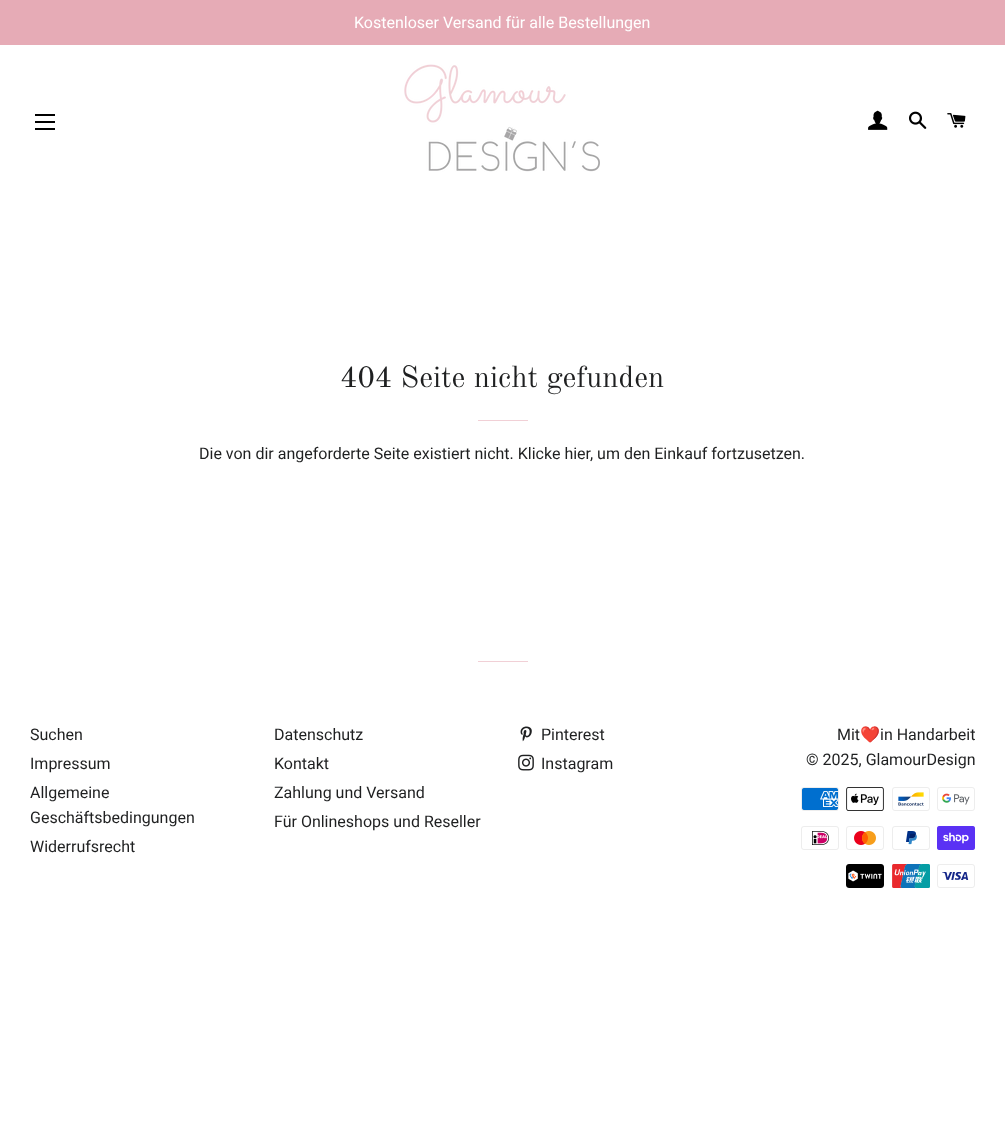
<svg xmlns="http://www.w3.org/2000/svg" width="1005" height="1132" viewBox="0 0 1005 1132">
  <rect width="100%" height="100%" fill="#fff"/>
  <path d="M0 0h1005v45H0z" fill="#e6abb6"/>
  <path d="M35 114h20v2H35z" fill="#000"/>
  <path d="M35 121h20v2H35z" fill="#000"/>
  <path d="M35 128h20v2H35z" fill="#000"/>
  <image x="404" y="64" width="196" height="108" href="img/1.png"/>
  <image x="868" y="110" width="20" height="20" href="img/2.png"/>
  <image x="909" y="111" width="18" height="18" href="img/3.png"/>
  <image x="947" y="113" width="19" height="15" href="img/4.png"/>
  <path d="M478 420h50v1H478z" fill="#f1d0d6"/>
  <path d="M478 661h50v1H478z" fill="#f1d0d6"/>
  <image x="520" y="726" width="12" height="16" href="img/5.png"/>
  <image x="518" y="754" width="16" height="17" href="img/6.png"/>
  <image x="801" y="787" width="38" height="24" href="img/7.png"/>
  <image x="846" y="787" width="38" height="24" href="img/8.png"/>
  <image x="892" y="787" width="38" height="24" href="img/9.png"/>
  <image x="937" y="787" width="38" height="24" href="img/10.png"/>
  <image x="801" y="826" width="38" height="24" href="img/11.png"/>
  <image x="846" y="826" width="38" height="24" href="img/12.png"/>
  <image x="892" y="826" width="38" height="24" href="img/13.png"/>
  <image x="937" y="826" width="38" height="24" href="img/14.png"/>
  <image x="846" y="864" width="38" height="24" href="img/15.png"/>
  <image x="892" y="864" width="38" height="24" href="img/16.png"/>
  <image x="937" y="864" width="38" height="24" href="img/17.png"/>
  <text x="354" y="28" font-family="Roboto" font-size="16" fill="#fff">Kostenloser Versand für alle Bestellungen</text>
  <text x="340" y="387" font-family="Old Standard TT" font-size="30" fill="#1f2021">404 Seite nicht gefunden</text>
  <g font-family="Roboto" font-size="16" fill="#1f2021">
    <text x="199" y="459">Die von dir angeforderte Seite existiert nicht. Klicke hier</text>
    <text x="590" y="459">, um den Einkauf fortzusetzen.</text>
    <text x="30" y="740">Suchen</text>
    <text x="30" y="769">Impressum</text>
    <text x="30" y="798">Allgemeine</text>
    <text x="30" y="823">Geschäftsbedingungen</text>
    <text x="30" y="852">Widerrufsrecht</text>
    <text x="274" y="740">Datenschutz</text>
    <text x="274" y="769">Kontakt</text>
    <text x="274" y="798">Zahlung und Versand</text>
    <text x="274" y="827">Für Onlineshops und Reseller</text>
    <text x="541" y="740">Pinterest</text>
    <text x="541" y="769">Instagram</text>
    <text x="837" y="740">Mit</text>
  </g>
  <text x="860" y="740" font-family="Noto Color Emoji" font-size="16" fill="#1f2021">❤️</text>
  <g font-family="Roboto" font-size="16" fill="#1f2021">
    <text x="880" y="740">in Handarbeit</text>
    <text x="806" y="765">© 2025, GlamourDesign</text>
  </g>
</svg>
